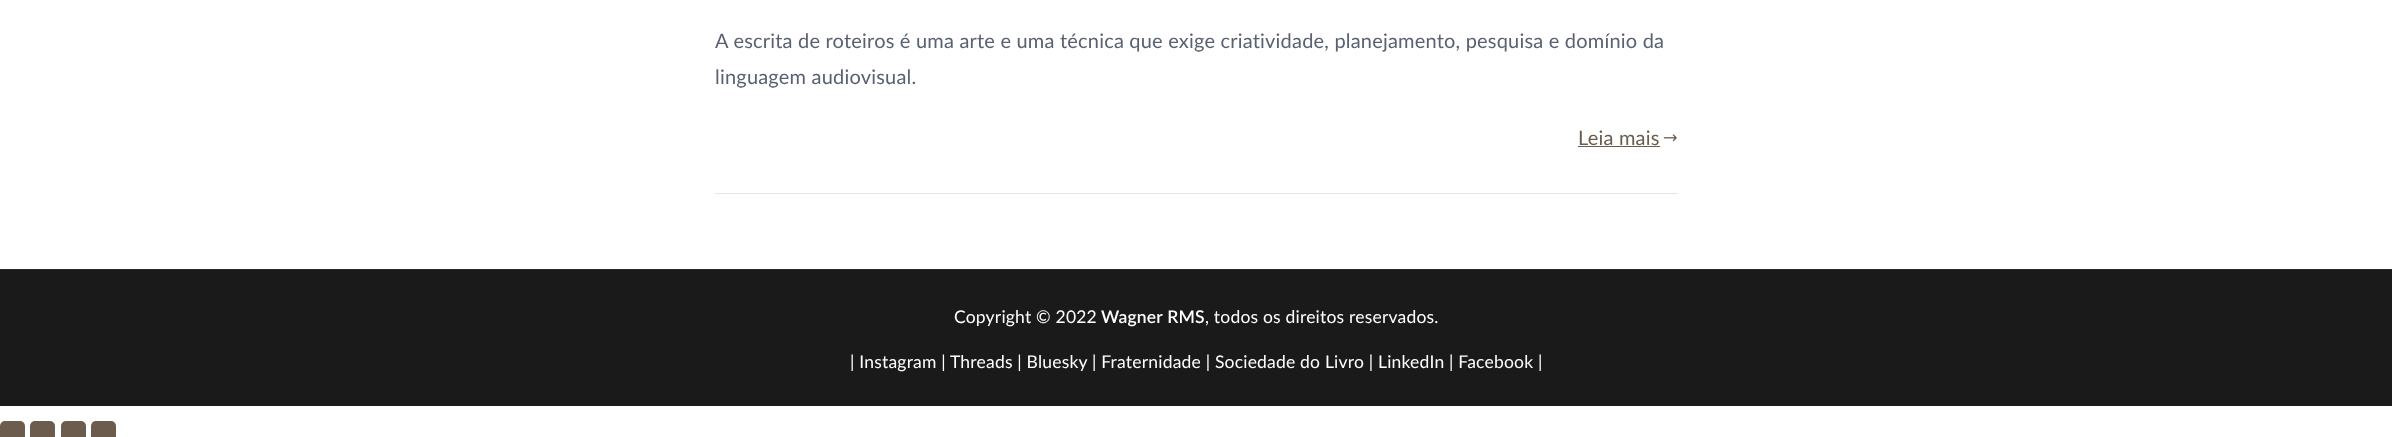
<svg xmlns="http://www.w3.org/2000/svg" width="2392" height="437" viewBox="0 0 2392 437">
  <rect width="100%" height="100%" fill="#fff"/>
  <path d="M715 193h963v1H715z" fill="#e4e4e7"/>
  <path d="M1578 146h82v1H1578z" fill="#6b5c4e"/>
  <image x="1663" y="134" width="14" height="8" href="img/1.png"/>
  <path d="M0 270h2392v136H0z" fill="#1a1a1a"/>
  <path d="M0 269h2392v1H0z" fill="#292929"/>
  <rect y="421" width="25" height="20" rx="5" fill="#6b5c4e"/>
  <rect x="30" y="421" width="25" height="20" rx="5" fill="#6b5c4e"/>
  <rect x="61" y="421" width="25" height="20" rx="5" fill="#6b5c4e"/>
  <rect x="91" y="421" width="25" height="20" rx="5" fill="#6b5c4e"/>
  <g font-family="Lato" font-size="20" letter-spacing="0.2" fill="#596172">
    <text x="715" y="48">A escrita de roteiros é uma arte e uma técnica que exige criatividade, planejamento, pesquisa e domínio da</text>
    <text x="715" y="84">linguagem audiovisual.</text>
  </g>
  <text x="1578" y="145" font-family="Lato" font-size="20" letter-spacing="0.2" fill="#6b5c4e">Leia mais</text>
  <text x="954" y="323" font-family="Lato" font-size="17.5" letter-spacing="0.2" fill="#fff">Copyright © 2022</text>
  <text x="1101" y="323" font-family="Lato" font-size="17.5" font-weight="600" letter-spacing="0.2" fill="#fff">Wagner RMS</text>
  <g font-family="Lato" font-size="17.5" letter-spacing="0.2" fill="#fff">
    <text x="1205" y="323">, todos os direitos reservados.</text>
    <text x="850" y="368">| Instagram | Threads | Bluesky</text>
    <text x="1092" y="368">| Fraternidade | Sociedade do Livro | LinkedIn | Facebook |</text>
  </g>
</svg>
